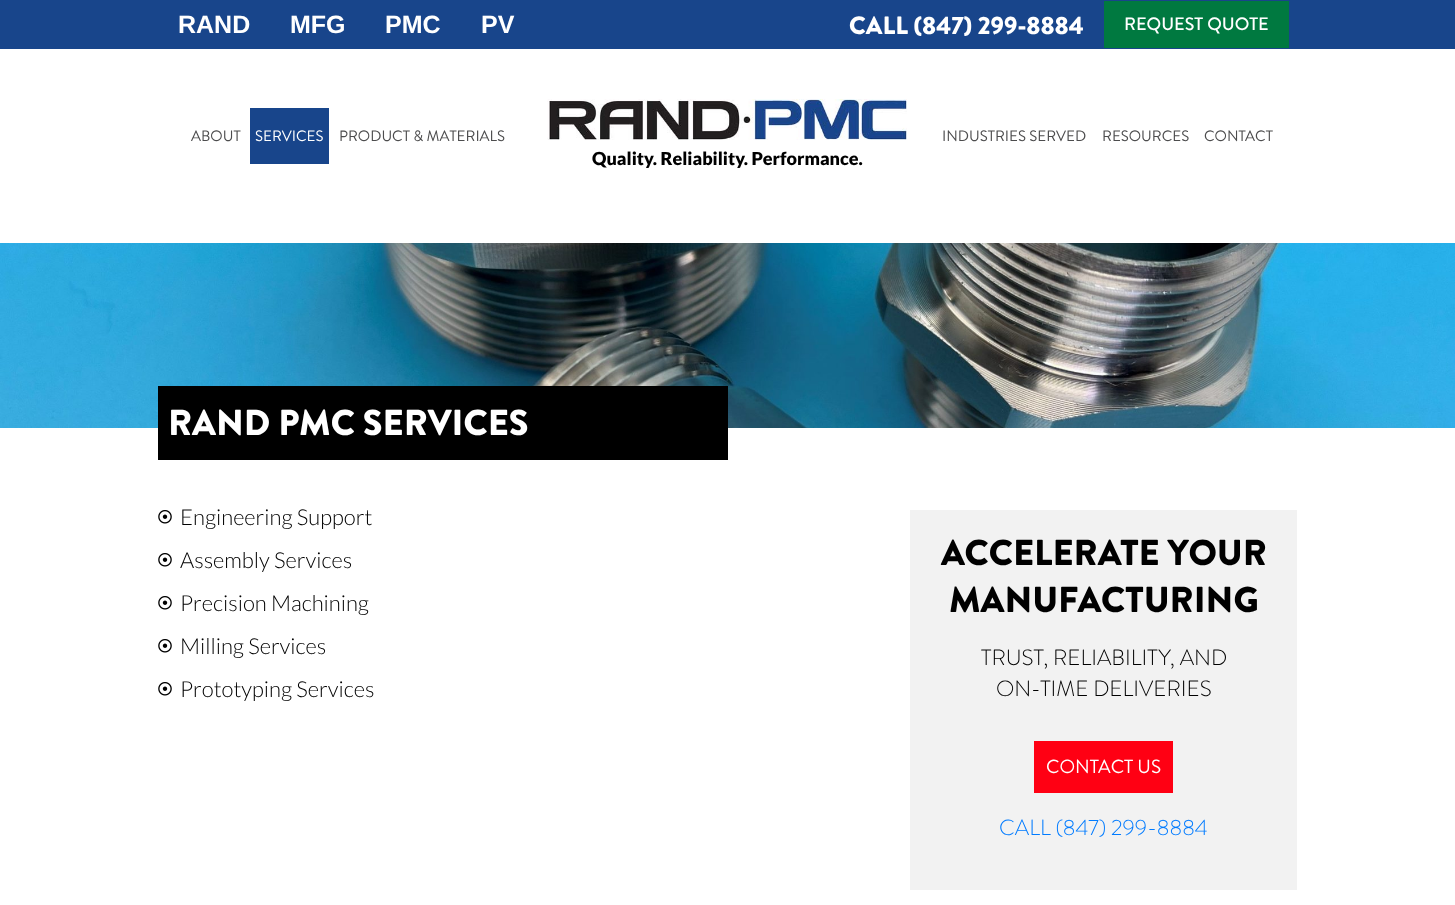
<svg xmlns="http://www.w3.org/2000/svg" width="1455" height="905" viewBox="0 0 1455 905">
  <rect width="100%" height="100%" fill="#fff"/>
  <path d="M0 0h1455v49H0z" fill="#18458b"/>
  <path d="M1104 1h185v47H1104z" fill="#007940"/>
  <path d="M250 108h79v56H250z" fill="#18458b"/>
  <image x="547" y="99" width="360" height="41" href="img/1.png"/>
  <image x="0" y="243" width="1455" height="185" href="img/2.png"/>
  <path d="M158 386h570v74H158z" fill="#000"/>
  <image x="158" y="510" width="14" height="14" href="img/3.png"/>
  <image x="158" y="553" width="14" height="14" href="img/3.png"/>
  <image x="158" y="596" width="14" height="14" href="img/3.png"/>
  <image x="158" y="639" width="14" height="14" href="img/3.png"/>
  <image x="158" y="682" width="14" height="14" href="img/3.png"/>
  <path d="M910 510h387v380H910z" fill="#f2f2f2"/>
  <path d="M1034 741h139v52H1034z" fill="#ff0013"/>
  <g font-family="Liberation Sans" font-size="25" font-weight="bold" fill="#fff">
    <text x="178" y="33">RAND</text>
    <text x="290" y="33">MFG</text>
    <text x="385" y="33">PMC</text>
    <text x="481" y="33">PV</text>
  </g>
  <text x="849" y="34" font-family="Brandon Grotesque" font-size="25" font-weight="900" fill="#fff">CALL (847) 299-8884</text>
  <text x="1124" y="30" font-family="Brandon Grotesque" font-size="18" font-weight="500" fill="#fff">REQUEST QUOTE</text>
  <text x="191" y="141" font-family="Brandon Grotesque" font-size="15" fill="#4c4c4d">ABOUT</text>
  <text x="255" y="141" font-family="Brandon Grotesque" font-size="15" fill="#fff">SERVICES</text>
  <g font-family="Brandon Grotesque" font-size="15" fill="#4c4c4d">
    <text x="339" y="141">PRODUCT &amp; MATERIALS</text>
    <text x="942" y="141">INDUSTRIES SERVED</text>
    <text x="1102" y="141">RESOURCES</text>
    <text x="1204" y="141">CONTACT</text>
  </g>
  <text x="592" y="165" font-family="Lato" font-size="18" font-weight="900" fill="#000">Quality. Reliability. Performance.</text>
  <text x="168" y="435" font-family="Brandon Grotesque" font-size="36" font-weight="900" fill="#fff">RAND PMC SERVICES</text>
  <g font-family="Lato" font-size="22" font-weight="300" fill="#000">
    <text x="180" y="525">Engineering Support</text>
    <text x="180" y="568">Assembly Services</text>
    <text x="180" y="611">Precision Machining</text>
    <text x="180" y="654">Milling Services</text>
    <text x="180" y="697">Prototyping Services</text>
  </g>
  <g font-family="Brandon Grotesque" font-size="36" font-weight="900" fill="#000">
    <text x="941" y="565">ACCELERATE YOUR</text>
    <text x="949" y="612">MANUFACTURING</text>
  </g>
  <g font-family="Brandon Grotesque" font-size="22" font-weight="300" fill="#000">
    <text x="981" y="665">TRUST, RELIABILITY, AND</text>
    <text x="996" y="696">ON-TIME DELIVERIES</text>
  </g>
  <text x="1046" y="773" font-family="Brandon Grotesque" font-size="19" fill="#fff">CONTACT US</text>
  <text x="999" y="835" font-family="Brandon Grotesque" font-size="22" font-weight="300" fill="#007bff">CALL (847) 299-8884</text>
</svg>
